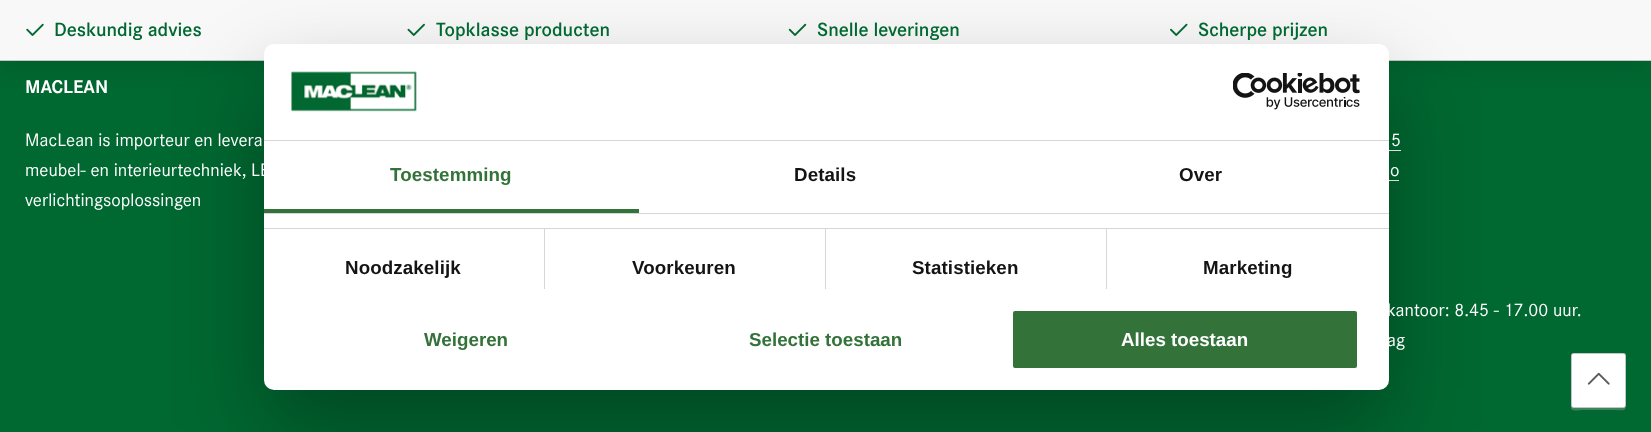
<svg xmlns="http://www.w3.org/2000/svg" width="1651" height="432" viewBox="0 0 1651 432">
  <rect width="100%" height="100%" fill="#006831"/>
  <path d="M0 5h1651v61H0z" fill="#0000001a" filter="blur(12.5px)"/>
  <path d="M0 0h1651v60H0z" fill="#f8f8f8"/>
  <path d="M0 60h1651v1H0z" fill="#c5c5c5"/>
  <image x="26" y="23" width="18" height="13" href="img/1.png"/>
  <image x="407" y="23" width="18" height="13" href="img/2.png"/>
  <image x="788" y="23" width="19" height="13" href="img/3.png"/>
  <image x="1170" y="23" width="18" height="13" href="img/4.png"/>
  <path d="M1389 150h12v1H1389z" fill="#fff"/>
  <path d="M1389 180h10v1H1389z" fill="#fff"/>
  <path d="M1571 356V408C1571 412 1581 410 1582 410H1615C1620 410 1626 412 1626 406C1626 407 1625 408 1624 408H1574C1572 408 1571 406 1571 405Z" fill="#3b845d"/>
  <rect x="1571.5" y="353.5" width="54" height="54" rx="2" fill="#fff" stroke="#c5c5c5"/>
  <image x="1587" y="372" width="23" height="13" href="img/5.png"/>
  <rect x="264" y="84" width="1125" height="346" rx="10" fill="#0000004d" filter="blur(42.5px)"/>
  <rect x="264" y="44" width="1125" height="346" rx="10" fill="#fff"/>
  <path d="M264 140h1125v1H264z" fill="#d6d6d6"/>
  <image x="291" y="71" width="126" height="41" href="img/6.png"/>
  <image x="1233" y="73" width="127" height="37" href="img/7.png"/>
  <path d="M264 213h1125v1H264z" fill="#d6d6d6"/>
  <path d="M264 209h375v4H264z" fill="#337239"/>
  <path d="M264 228h1125v1H264z" fill="#d6d6d6"/>
  <path d="M544 229h1v60H544z" fill="#d6d6d6"/>
  <path d="M825 229h1v60H825z" fill="#d6d6d6"/>
  <path d="M1106 229h1v60H1106z" fill="#d6d6d6"/>
  <rect x="1011.5" y="309.5" width="347" height="60" rx="3.5" fill="#337239" stroke="#fff" stroke-width="3"/>
  <g font-family="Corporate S" font-size="20" font-weight="600" fill="#006831">
    <text x="54" y="36">Deskundig advies</text>
    <text x="436" y="36">Topklasse producten</text>
    <text x="817" y="36">Snelle leveringen</text>
    <text x="1198" y="36">Scherpe prijzen</text>
  </g>
  <text x="25" y="93" font-family="Corporate S" font-size="19.25" font-weight="bold" fill="#fff">MACLEAN</text>
  <g font-family="Corporate S" font-size="18.75" fill="#fff">
    <text x="25" y="146">MacLean is importeur en levera</text>
    <text x="25" y="176">meubel- en interieurtechniek, LE</text>
    <text x="25" y="206">verlichtingsoplossingen</text>
    <text x="1391" y="146">5</text>
    <text x="1390" y="176">o</text>
    <text x="1387" y="316">kantoor: 8.45 - 17.00 uur.</text>
    <text x="1387" y="346">ag</text>
  </g>
  <text x="390" y="181" font-family="Liberation Sans" font-size="18.75" font-weight="bold" letter-spacing="0.1" fill="#337239">Toestemming</text>
  <g font-family="Liberation Sans" font-size="18.75" font-weight="bold" letter-spacing="0.1" fill="#141414">
    <text x="794" y="181">Details</text>
    <text x="1179" y="181">Over</text>
    <text x="345" y="274">Noodzakelijk</text>
    <text x="632" y="274">Voorkeuren</text>
    <text x="912" y="274">Statistieken</text>
    <text x="1203" y="274">Marketing</text>
  </g>
  <g font-family="Liberation Sans" font-size="18.75" font-weight="bold" fill="#337239">
    <text x="424" y="346">Weigeren</text>
    <text x="749" y="346">Selectie toestaan</text>
  </g>
  <text x="1121" y="346" font-family="Liberation Sans" font-size="18.75" font-weight="bold" fill="#fff">Alles toestaan</text>
</svg>
